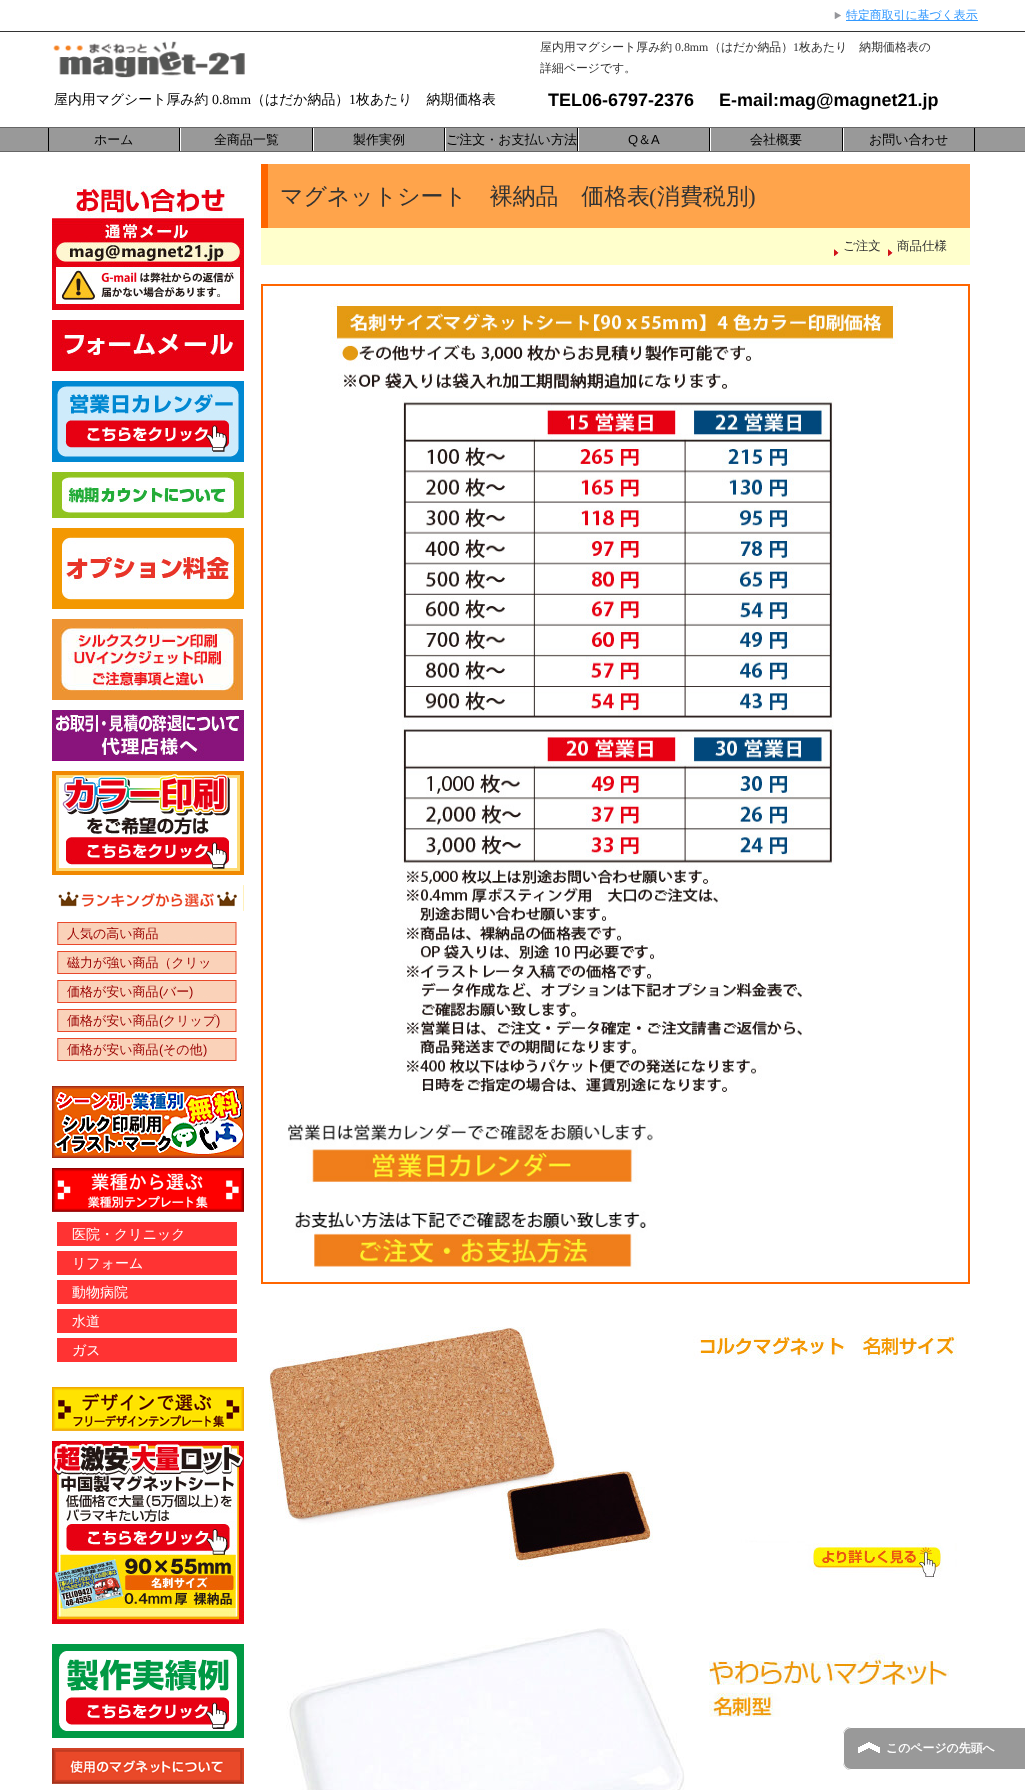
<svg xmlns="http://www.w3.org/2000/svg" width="1025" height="1790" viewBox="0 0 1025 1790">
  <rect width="100%" height="100%" fill="#fff"/>
  <path d="M0 31h1025v1H0z" fill="#333"/>
  <image x="834" y="12" width="7" height="7" href="img/1.png"/>
  <path d="M846 20h132v1H846z" fill="#39f"/>
  <image x="53" y="41" width="192" height="37" href="img/2.png"/>
  <path d="M0 128h1025v23H0z" fill="#999"/>
  <path d="M0 127h1025v1H0z" fill="#666"/>
  <path d="M0 151h1025v1H0z" fill="#666"/>
  <path d="M179 128h1v23H179z" fill="#000"/>
  <path d="M48 128h1v23H48z" fill="#000"/>
  <path d="M312 128h1v23H312z" fill="#000"/>
  <path d="M180 128h1v23H180z" fill="#fff"/>
  <path d="M444 128h1v23H444z" fill="#000"/>
  <path d="M313 128h1v23H313z" fill="#fff"/>
  <path d="M577 128h1v23H577z" fill="#000"/>
  <path d="M445 128h1v23H445z" fill="#fff"/>
  <path d="M709 128h1v23H709z" fill="#000"/>
  <path d="M578 128h1v23H578z" fill="#fff"/>
  <path d="M842 128h1v23H842z" fill="#000"/>
  <path d="M710 128h1v23H710z" fill="#fff"/>
  <path d="M974 128h1v23H974z" fill="#000"/>
  <path d="M843 128h1v23H843z" fill="#fff"/>
  <path d="M268 164h702v64H268z" fill="#ffa44b"/>
  <path d="M261 164h7v64H261z" fill="#f60"/>
  <path d="M261 228h709v37H261z" fill="#ffc"/>
  <image x="834" y="249" width="5" height="8" href="img/3.png"/>
  <image x="888" y="249" width="5" height="8" href="img/3.png"/>
  <path d="M262 285h707v998H262z" fill="none" stroke="#f60" stroke-width="2"/>
  <image x="330" y="300" width="568" height="795" href="img/4.png"/>
  <image x="288" y="1124" width="365" height="60" href="img/5.png"/>
  <image x="295" y="1211" width="352" height="59" href="img/6.png"/>
  <image x="269" y="1327" width="688" height="252" href="img/7.png"/>
  <image x="286" y="1628" width="663" height="162" href="img/8.png"/>
  <image x="52" y="186" width="192" height="124" href="img/9.png"/>
  <image x="52" y="320" width="192" height="51" href="img/10.png"/>
  <image x="52" y="381" width="192" height="81" href="img/11.png"/>
  <image x="52" y="472" width="192" height="46" href="img/12.png"/>
  <image x="52" y="528" width="192" height="81" href="img/13.png"/>
  <image x="52" y="619" width="191" height="81" href="img/14.png"/>
  <image x="52" y="710" width="192" height="51" href="img/15.png"/>
  <image x="52" y="771" width="192" height="104" href="img/16.png"/>
  <image x="58" y="885" width="186" height="26" href="img/17.png"/>
  <image x="57" y="922" width="180" height="23" href="img/18.png"/>
  <image x="57" y="951" width="180" height="23" href="img/18.png"/>
  <image x="57" y="980" width="180" height="23" href="img/18.png"/>
  <image x="57" y="1009" width="180" height="23" href="img/18.png"/>
  <image x="57" y="1038" width="180" height="23" href="img/18.png"/>
  <image x="52" y="1086" width="192" height="72" href="img/19.png"/>
  <image x="52" y="1168" width="192" height="44" href="img/20.png"/>
  <path d="M57 1222h180v24H57z" fill="#f33"/>
  <path d="M57 1251h180v24H57z" fill="#f33"/>
  <path d="M57 1280h180v24H57z" fill="#f33"/>
  <path d="M57 1309h180v24H57z" fill="#f33"/>
  <path d="M57 1338h180v24H57z" fill="#f33"/>
  <image x="52" y="1387" width="192" height="44" href="img/21.png"/>
  <image x="52" y="1441" width="192" height="183" href="img/22.png"/>
  <image x="52" y="1644" width="192" height="94" href="img/23.png"/>
  <image x="52" y="1748" width="192" height="36" href="img/24.png"/>
  <path d="M851 1727H1025V1770H851C846.5 1770 843 1766.5 843 1762V1735C843 1730.5 846.5 1727 851 1727Z" fill="#999"/>
  <image x="858" y="1742" width="22" height="11" href="img/25.png"/>
  <path d="M851 1727H1025V1770H851C847 1770 843 1766 843 1762V1735C843 1731 847 1727 851 1727ZM851 1728H1025V1769H851C847 1769 844 1766 844 1762V1735C844 1731 847 1728 851 1728Z" fill="#fff" fill-rule="evenodd"/>
  <text x="846" y="19" font-family="WenQuanYi Zen Hei" font-size="11.9" font-weight="500" fill="#39f">特定商取引に基づく表示</text>
  <text x="540" y="51" font-family="WenQuanYi Zen Hei" font-size="11.9" font-weight="500" fill="#333">屋内用マグシート厚み約</text>
  <text x="675" y="51" font-family="Liberation Serif" font-size="11.9" fill="#333">0.8mm</text>
  <text x="709" y="51" font-family="WenQuanYi Zen Hei" font-size="11.9" font-weight="500" fill="#333">（はだか納品）</text>
  <text x="793" y="51" font-family="Liberation Serif" font-size="11.9" fill="#333">1</text>
  <g font-family="WenQuanYi Zen Hei" font-size="11.9" font-weight="500" fill="#333">
    <text x="799" y="51">枚あたり　納期価格表の</text>
    <text x="540" y="72">詳細ページです。</text>
  </g>
  <text x="54" y="104" font-family="WenQuanYi Zen Hei" font-size="13.9" font-weight="500" fill="#000">屋内用マグシート厚み約</text>
  <text x="212" y="104" font-family="Liberation Serif" font-size="13.9" fill="#000">0.8mm</text>
  <text x="251" y="104" font-family="WenQuanYi Zen Hei" font-size="13.9" font-weight="500" fill="#000">（はだか納品）</text>
  <text x="349" y="104" font-family="Liberation Serif" font-size="13.9" fill="#000">1</text>
  <text x="356" y="104" font-family="WenQuanYi Zen Hei" font-size="13.9" font-weight="500" fill="#000">枚あたり　納期価格表</text>
  <g font-family="Liberation Sans" font-size="18" font-weight="bold" fill="#000">
    <text x="548" y="106">TEL06-6797-2376</text>
    <text x="719" y="106">E-mail:mag@magnet21.jp</text>
  </g>
  <g font-family="WenQuanYi Zen Hei" font-size="13" font-weight="500" fill="#000">
    <text x="94" y="144">ホーム</text>
    <text x="214" y="144">全商品一覧</text>
    <text x="353" y="144">製作実例</text>
    <text x="446" y="144">ご注文・お支払い方法</text>
  </g>
  <text x="628" y="144" font-family="Liberation Sans" font-size="13" fill="#000">Q</text>
  <text x="638" y="144" font-family="WenQuanYi Zen Hei" font-size="13" font-weight="500" fill="#000">＆</text>
  <text x="651" y="144" font-family="Liberation Sans" font-size="13" fill="#000">A</text>
  <g font-family="WenQuanYi Zen Hei" font-size="13" font-weight="500" fill="#000">
    <text x="750" y="144">会社概要</text>
    <text x="869" y="144">お問い合わせ</text>
  </g>
  <text x="280" y="204" font-family="WenQuanYi Zen Hei" font-size="22.9" font-weight="500" fill="#333">マグネットシート　裸納品　価格表</text>
  <text x="649" y="204" font-family="Liberation Serif" font-size="22.9" fill="#333">(</text>
  <text x="657" y="204" font-family="WenQuanYi Zen Hei" font-size="22.9" font-weight="500" fill="#333">消費税別</text>
  <text x="748" y="204" font-family="Liberation Serif" font-size="22.9" fill="#333">)</text>
  <g font-family="WenQuanYi Zen Hei" font-size="12.5" font-weight="500" fill="#333">
    <text x="843" y="250">ご注文</text>
    <text x="897" y="250">商品仕様</text>
  </g>
  <g font-family="WenQuanYi Zen Hei" font-size="13" font-weight="500" fill="#900">
    <text x="67" y="938">人気の高い商品</text>
    <text x="67" y="967">磁力が強い商品（クリッ</text>
    <text x="67" y="996">価格が安い商品</text>
  </g>
  <text x="159" y="996" font-family="Liberation Sans" font-size="13" fill="#900">(</text>
  <text x="163" y="996" font-family="WenQuanYi Zen Hei" font-size="13" font-weight="500" fill="#900">バー</text>
  <text x="189" y="996" font-family="Liberation Sans" font-size="13" fill="#900">)</text>
  <text x="67" y="1025" font-family="WenQuanYi Zen Hei" font-size="13" font-weight="500" fill="#900">価格が安い商品</text>
  <text x="159" y="1025" font-family="Liberation Sans" font-size="13" fill="#900">(</text>
  <text x="163" y="1025" font-family="WenQuanYi Zen Hei" font-size="13" font-weight="500" fill="#900">クリップ</text>
  <text x="216" y="1025" font-family="Liberation Sans" font-size="13" fill="#900">)</text>
  <text x="67" y="1054" font-family="WenQuanYi Zen Hei" font-size="13" font-weight="500" fill="#900">価格が安い商品</text>
  <text x="159" y="1054" font-family="Liberation Sans" font-size="13" fill="#900">(</text>
  <text x="163" y="1054" font-family="WenQuanYi Zen Hei" font-size="13" font-weight="500" fill="#900">その他</text>
  <text x="203" y="1054" font-family="Liberation Sans" font-size="13" fill="#900">)</text>
  <g font-family="WenQuanYi Zen Hei" font-size="14" font-weight="500" fill="#fff">
    <text x="72" y="1239">医院・クリニック</text>
    <text x="72" y="1268">リフォーム</text>
    <text x="72" y="1297">動物病院</text>
    <text x="72" y="1326">水道</text>
    <text x="72" y="1355">ガス</text>
  </g>
  <text x="886" y="1752" font-family="WenQuanYi Zen Hei" font-size="11.9" font-weight="bold" fill="#fff">このページの先頭へ</text>
</svg>
